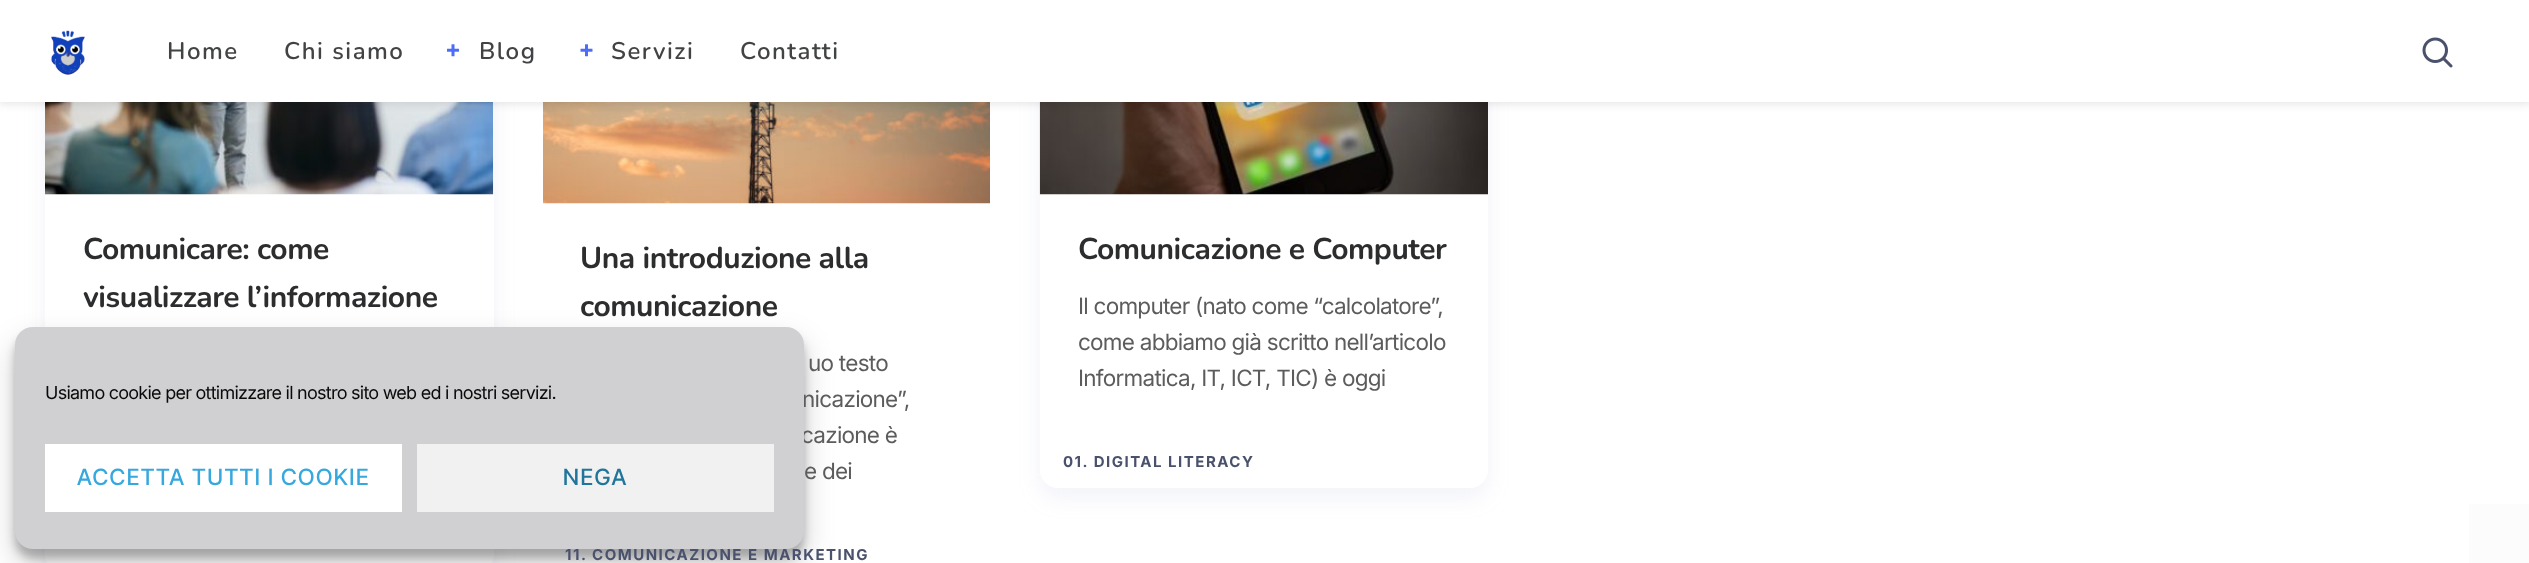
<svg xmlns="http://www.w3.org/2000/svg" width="2529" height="563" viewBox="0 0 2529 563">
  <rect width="100%" height="100%" fill="#fff"/>
  <rect x="45" y="-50" width="449" height="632" rx="18" fill="#97a0cc1f" filter="blur(10.5px)"/>
  <rect x="45" y="-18" width="449" height="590" rx="18" fill="#fff"/>
  <image x="45" y="102" width="449" height="93" href="img/5.png"/>
  <image x="543" y="102" width="447" height="102" href="img/6.png"/>
  <rect x="1040" y="-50" width="448" height="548" rx="18" fill="#97a0cc1f" filter="blur(10.5px)"/>
  <rect x="1040" y="-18" width="448" height="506" rx="18" fill="#fff"/>
  <image x="1039" y="102" width="449" height="93" href="img/7.png"/>
  <path d="M-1 -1h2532v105H-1z" fill="#0000001a" filter="blur(4px)"/>
  <path d="M0 0h2529v102H0z" fill="#fff"/>
  <image x="51" y="30" width="34" height="45" href="img/1.png"/>
  <image x="447" y="44" width="12" height="13" href="img/2.png"/>
  <image x="580" y="44" width="13" height="13" href="img/3.png"/>
  <image x="2422" y="37" width="31" height="31" href="img/4.png"/>
  <rect x="15" y="336" width="789" height="222" rx="18" fill="#0000003b" filter="blur(4.5px)"/>
  <rect x="15" y="342" width="789" height="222" rx="18" fill="#00000030" filter="blur(15px)"/>
  <path d="M2469 504h60v59H2469z" fill="#fcfcfc"/>
  <g font-family="Nunito" font-size="24" font-weight="600" letter-spacing="1.5" fill="#414344">
    <text x="167" y="59">Home</text>
    <text x="284" y="59">Chi siamo</text>
    <text x="479" y="59">Blog</text>
    <text x="611" y="59">Servizi</text>
    <text x="740" y="59">Contatti</text>
  </g>
  <g font-family="Nunito" font-size="30" font-weight="bold" letter-spacing="-0.45" fill="#2c2d2f">
    <text x="83" y="259">Comunicare: come</text>
    <text x="83" y="307">visualizzare l’informazione</text>
    <text x="580" y="268">Una introduzione alla</text>
    <text x="580" y="316">comunicazione</text>
  </g>
  <g font-family="Inter" font-size="22.5" letter-spacing="-0.75" fill="#5c5c5c">
    <text x="808" y="371">uo testo</text>
    <text x="802" y="407">nicazione”,</text>
    <text x="801" y="443">cazione è</text>
    <text x="804" y="479">e dei</text>
  </g>
  <text x="565" y="560" font-family="Inter" font-size="15" font-weight="bold" letter-spacing="1.5" fill="#49516c">11. COMUNICAZIONE E MARKETING</text>
  <text x="1078" y="259" font-family="Nunito" font-size="30" font-weight="bold" letter-spacing="-0.45" fill="#2c2d2f">Comunicazione e Computer</text>
  <g font-family="Inter" font-size="22.5" letter-spacing="-0.75" fill="#5c5c5c">
    <text x="1078" y="314">Il computer (nato come “calcolatore”,</text>
    <text x="1078" y="350">come abbiamo già scritto nell’articolo</text>
    <text x="1078" y="386">Informatica, IT, ICT, TIC) è oggi</text>
  </g>
  <text x="1063" y="467" font-family="Inter" font-size="15" font-weight="bold" letter-spacing="1.5" fill="#49516c">01. DIGITAL LITERACY</text>
  <rect x="15" y="327" width="789" height="222" rx="18" fill="#d0cfd1"/>
  <text x="45" y="399" font-family="Inter" font-size="18" letter-spacing="-0.75" fill="#0a0a0a">Usiamo cookie per ottimizzare il nostro sito web ed i nostri servizi.</text>
  <path d="M45 444h357v68H45z" fill="#fff"/>
  <text x="77" y="485" font-family="Inter Tight" font-size="22.5" font-weight="500" letter-spacing="1.5" fill="#37a8de">ACCETTA TUTTI I COOKIE</text>
  <path d="M417 444h357v68H417z" fill="#f1f1f1"/>
  <text x="563" y="485" font-family="Inter Tight" font-size="22.5" font-weight="500" letter-spacing="1.5" fill="#21759b">NEGA</text>
</svg>
